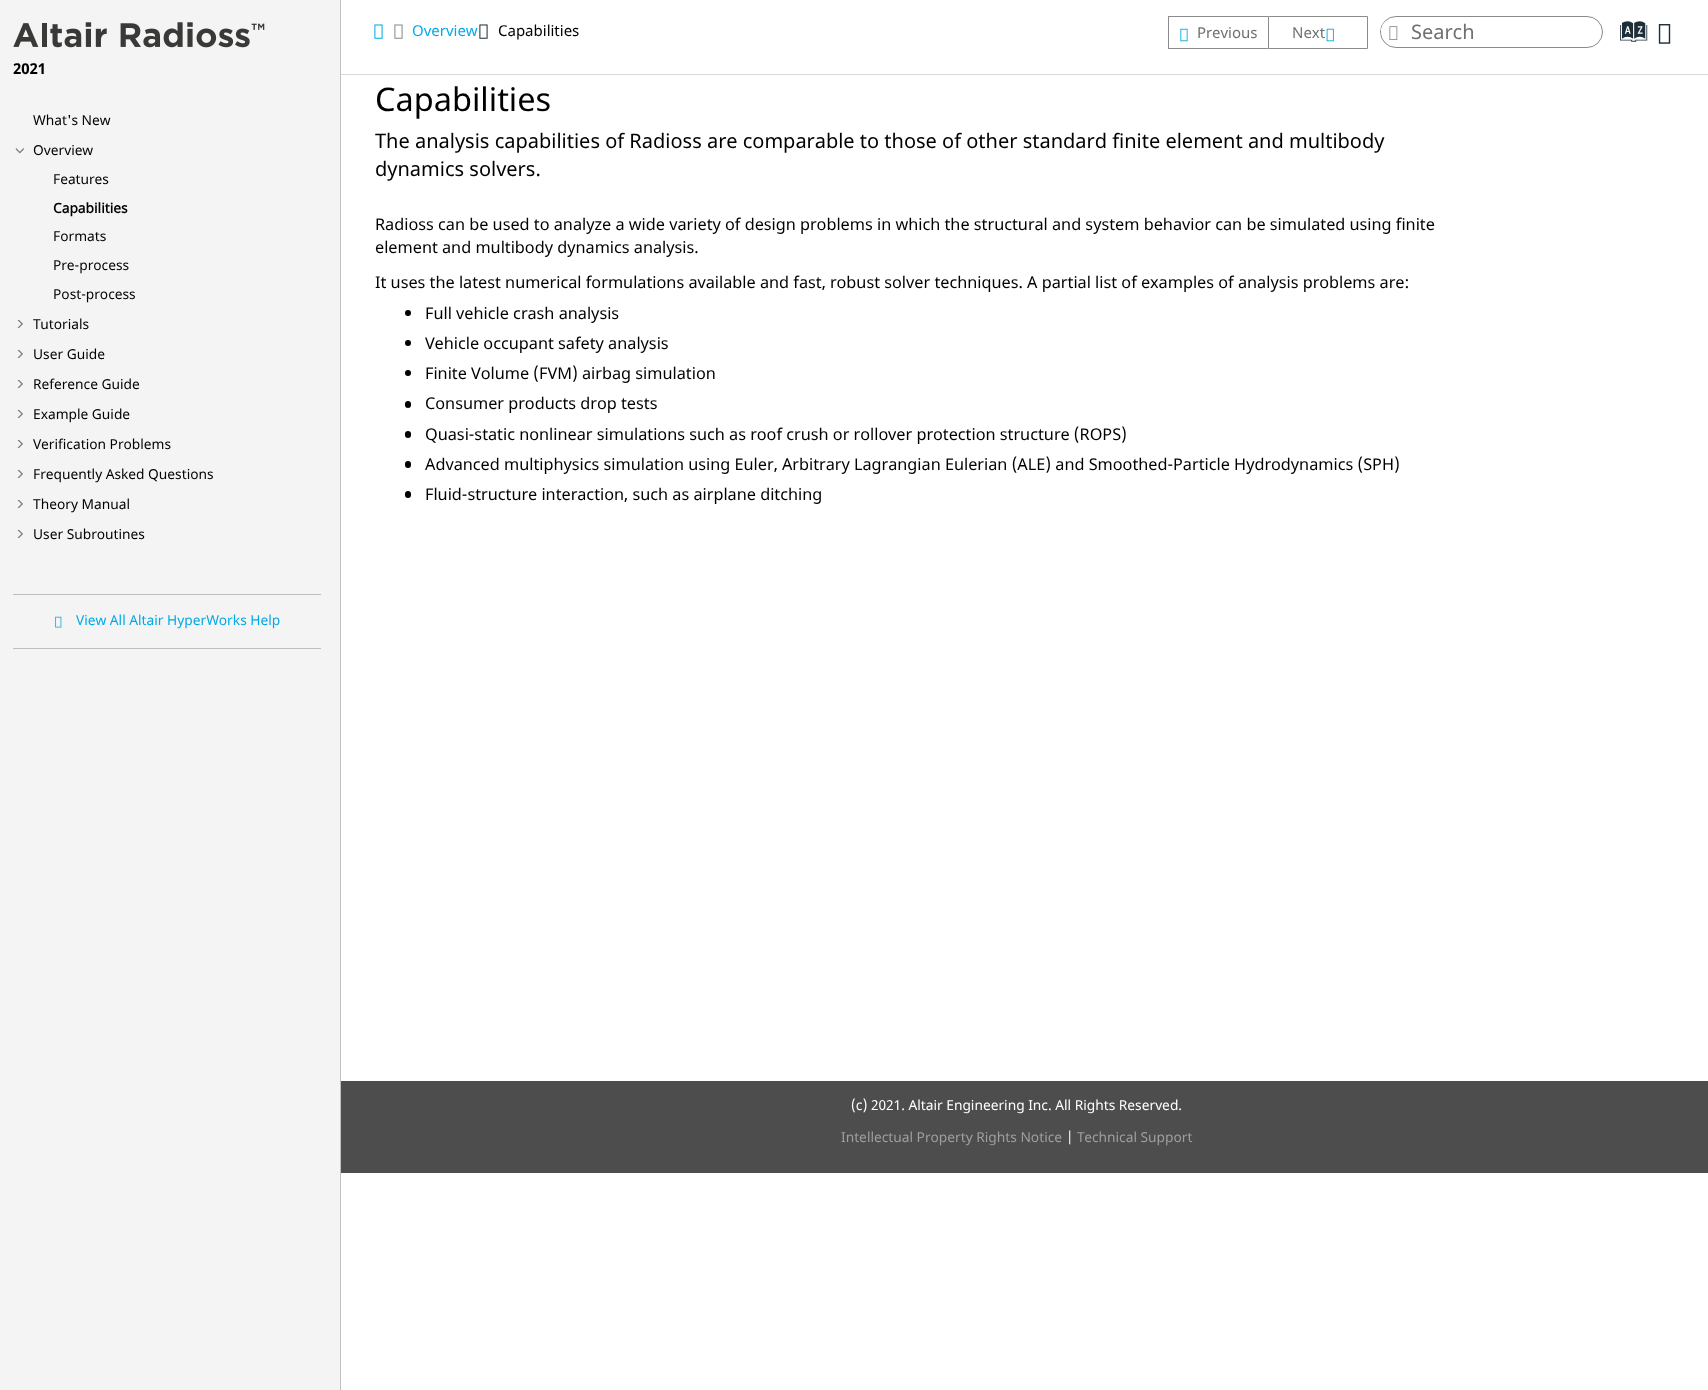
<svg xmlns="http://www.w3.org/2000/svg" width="1708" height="1390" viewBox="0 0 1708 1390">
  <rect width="100%" height="100%" fill="#fff"/>
  <path d="M0 0h340v1390H0z" fill="#f4f4f4"/>
  <path d="M340 0h1v1390H340z" fill="#c0c0c0"/>
  <image x="13" y="22" width="252" height="26" href="img/1.png"/>
  <image x="15" y="148" width="9" height="6" href="img/2.png"/>
  <image x="17" y="319" width="6" height="9" href="img/3.png"/>
  <image x="17" y="349" width="6" height="9" href="img/3.png"/>
  <image x="17" y="379" width="6" height="9" href="img/3.png"/>
  <image x="17" y="409" width="6" height="9" href="img/3.png"/>
  <image x="17" y="439" width="6" height="9" href="img/3.png"/>
  <image x="17" y="469" width="6" height="9" href="img/3.png"/>
  <image x="17" y="499" width="6" height="9" href="img/3.png"/>
  <image x="17" y="529" width="6" height="9" href="img/3.png"/>
  <path d="M13 594h308v1H13z" fill="#bebebe"/>
  <path d="M13 648h308v1H13z" fill="#bebebe"/>
  <image x="55" y="616" width="7" height="12" href="img/4.png"/>
  <path d="M341 74h1367v1H341z" fill="#d8d8d8"/>
  <image x="374" y="24" width="9" height="15" href="img/5.png"/>
  <image x="394" y="24" width="9" height="15" href="img/6.png"/>
  <image x="479" y="24" width="9" height="15" href="img/7.png"/>
  <path d="M1168 16h100v1H1168z" fill="#8b8b8b"/>
  <path d="M1168 48h100v1H1168z" fill="#8b8b8b"/>
  <path d="M1168 16h1v33H1168z" fill="#8b8b8b"/>
  <image x="1180" y="28" width="8" height="14" href="img/8.png"/>
  <path d="M1268.5 16.5h99v32H1268.5z" fill="none" stroke="#8b8b8b"/>
  <image x="1326" y="28" width="8" height="14" href="img/9.png"/>
  <rect x="1380.5" y="16.5" width="222" height="31" rx="15.5" fill="none" stroke="#8b8b8b"/>
  <rect x="1381" y="19" width="25" height="24" rx="12" fill="#fff"/>
  <image x="1389" y="26" width="9" height="14" href="img/10.png"/>
  <image x="1658" y="24" width="13" height="20" href="img/11.png"/>
  <circle cx="408" cy="313" r="3" fill="#000"/>
  <circle cx="408" cy="343" r="3" fill="#000"/>
  <circle cx="408" cy="373" r="3" fill="#000"/>
  <rect x="405" y="401" width="6" height="7" rx="3" fill="#000"/>
  <rect x="405" y="431" width="6" height="7" rx="3" fill="#000"/>
  <rect x="405" y="461" width="6" height="7" rx="3" fill="#000"/>
  <rect x="405" y="491" width="6" height="7" rx="3" fill="#000"/>
  <path d="M341 1081h1367v92H341z" fill="#4d4d4d"/>
  <text x="13" y="74" font-family="'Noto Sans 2'" font-size="15" font-weight="bold" fill="#000">2021</text>
  <g font-family="Noto Sans" font-size="13.75" fill="#000">
    <text x="33" y="125">What's New</text>
    <text x="33" y="155">Overview</text>
    <text x="53" y="184">Features</text>
  </g>
  <text x="53" y="213" font-family="Noto Sans" font-size="13.75" font-weight="bold" fill="#000">Capabilities</text>
  <g font-family="Noto Sans" font-size="13.75" fill="#000">
    <text x="53" y="241">Formats</text>
    <text x="53" y="270">Pre-process</text>
    <text x="53" y="299">Post-process</text>
    <text x="33" y="329">Tutorials</text>
    <text x="33" y="359">User Guide</text>
    <text x="33" y="389">Reference Guide</text>
    <text x="33" y="419">Example Guide</text>
    <text x="33" y="449">Verification Problems</text>
    <text x="33" y="479">Frequently Asked Questions</text>
    <text x="33" y="509">Theory Manual</text>
    <text x="33" y="539">User Subroutines</text>
  </g>
  <text x="76" y="625" font-family="Noto Sans" font-size="13.75" fill="#00aae6">View All Altair HyperWorks Help</text>
  <text x="412" y="36" font-family="Noto Sans" font-size="15" fill="#00aae6">Overview</text>
  <text x="498" y="36" font-family="Noto Sans" font-size="15" fill="#000">Capabilities</text>
  <g font-family="Noto Sans" font-size="15" fill="#707070">
    <text x="1197" y="38">Previous</text>
    <text x="1292" y="38">Next</text>
  </g>
  <text x="1411" y="39" font-family="Noto Sans" font-size="20" fill="#707070">Search</text>
  <text x="1623" y="45" font-family="Oxygen" font-size="29" fill="#1d2e38">a</text>
  <text x="375" y="111" font-family="Noto Sans" font-size="32.5" fill="#000">Capabilities</text>
  <g font-family="Noto Sans" font-size="20" fill="#000">
    <text x="375" y="148">The analysis capabilities of Radioss are comparable to those of other standard finite element and multibody</text>
    <text x="375" y="176">dynamics solvers.</text>
  </g>
  <g font-family="Noto Sans" font-size="16.25" fill="#000">
    <text x="375" y="230">Radioss can be used to analyze a wide variety of design problems in which the structural and system behavior can be simulated using finite</text>
    <text x="375" y="253">element and multibody dynamics analysis.</text>
    <text x="375" y="288">It uses the latest numerical formulations available and fast, robust solver techniques. A partial list of examples of analysis problems are:</text>
    <text x="425" y="319">Full vehicle crash analysis</text>
    <text x="425" y="349">Vehicle occupant safety analysis</text>
    <text x="425" y="379">Finite Volume (FVM) airbag simulation</text>
    <text x="425" y="409">Consumer products drop tests</text>
    <text x="425" y="440">Quasi-static nonlinear simulations such as roof crush or rollover protection structure (ROPS)</text>
    <text x="425" y="470">Advanced multiphysics simulation using Euler, Arbitrary Lagrangian Eulerian (ALE) and Smoothed-Particle Hydrodynamics (SPH)</text>
    <text x="425" y="500">Fluid-structure interaction, such as airplane ditching</text>
  </g>
  <text x="851" y="1110" font-family="Noto Sans" font-size="13.75" fill="#fff">(c) 2021. Altair Engineering Inc. All Rights Reserved.</text>
  <text x="841" y="1142" font-family="Noto Sans" font-size="13.75" fill="#9f9f9f">Intellectual Property Rights Notice</text>
  <text x="1066" y="1142" font-family="Noto Sans" font-size="13.75" fill="#fff">|</text>
  <text x="1077" y="1142" font-family="Noto Sans" font-size="13.75" fill="#9f9f9f">Technical Support</text>
</svg>
